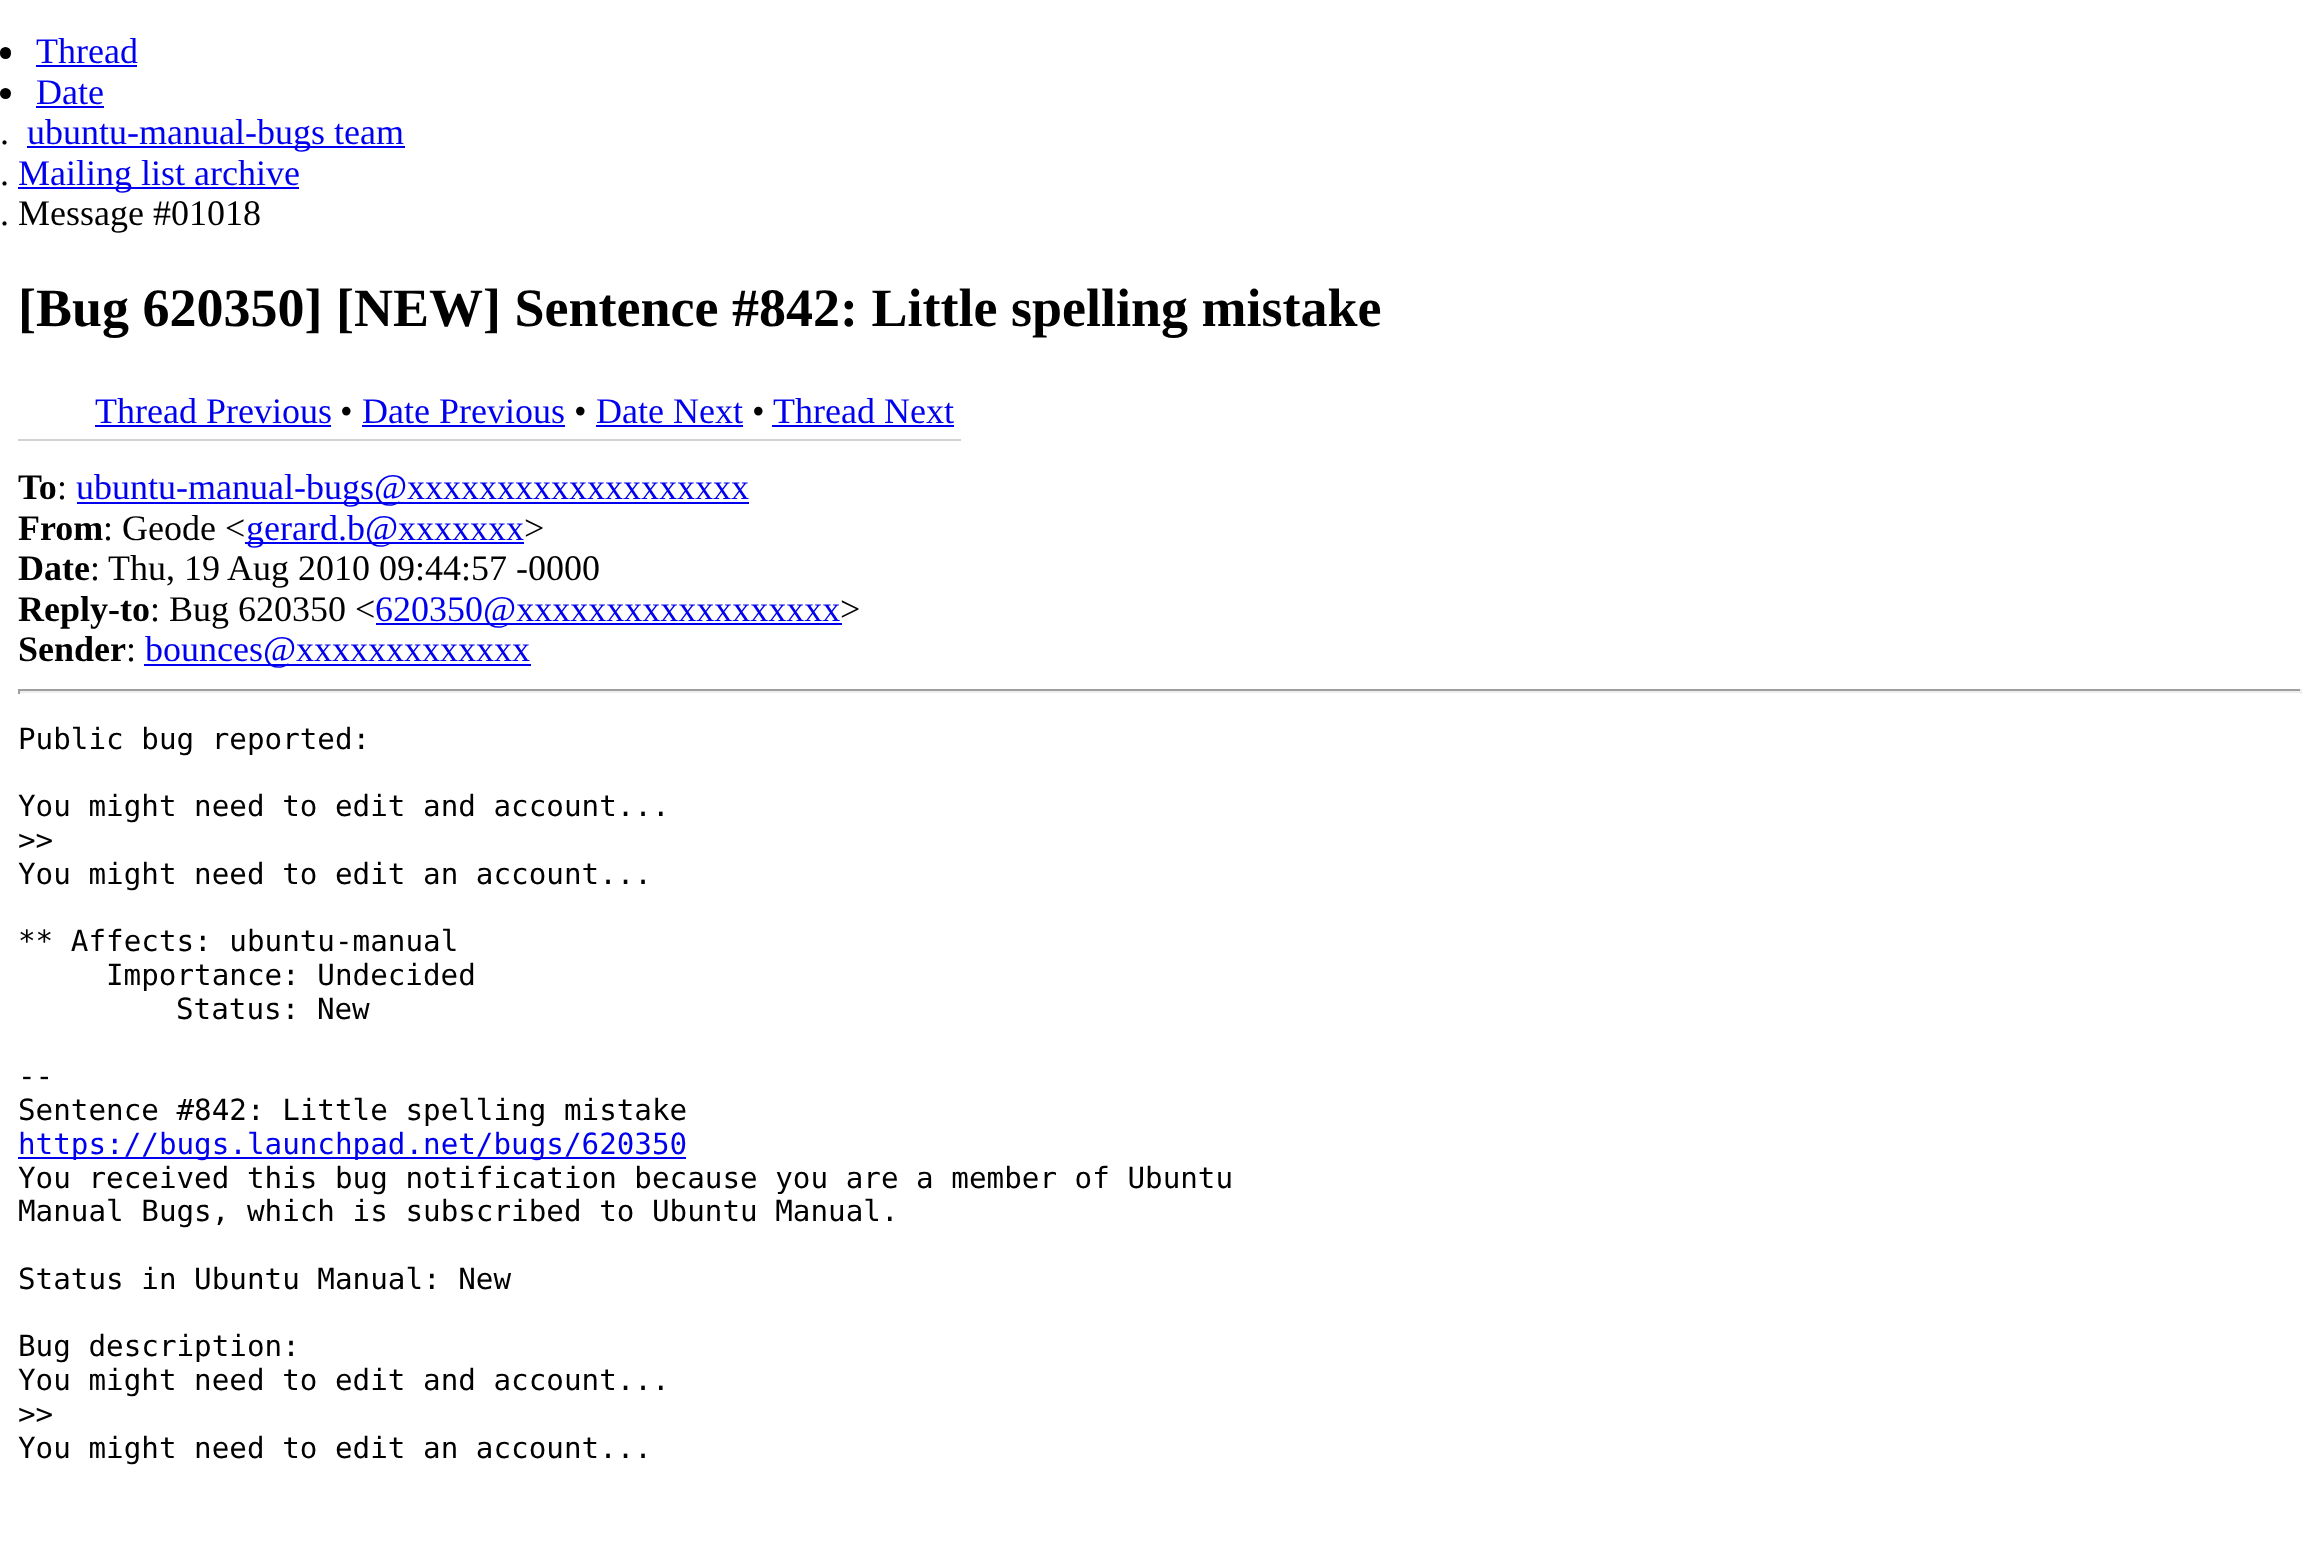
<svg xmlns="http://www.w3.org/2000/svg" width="2319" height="1549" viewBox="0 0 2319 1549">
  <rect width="100%" height="100%" fill="#fff"/>
  <rect y="47" width="11" height="12" rx="5.5" fill="#000"/>
  <path d="M36 65h101v2H36z" fill="#00e"/>
  <circle cx="5.5" cy="93.5" r="5.5" fill="#000"/>
  <path d="M36 106h68v2H36z" fill="#00e"/>
  <path d="M27 146h378v2H27z" fill="#00e"/>
  <path d="M18 187h281v2H18z" fill="#00e"/>
  <path d="M18 439h943v2H18z" fill="#d2d2d2"/>
  <path d="M95 425h236v2H95z" fill="#00e"/>
  <path d="M362 425h203v2H362z" fill="#00e"/>
  <path d="M596 425h147v2H596z" fill="#00e"/>
  <path d="M772 425h182v2H772z" fill="#00e"/>
  <path d="M77 502h672v2H77z" fill="#00e"/>
  <path d="M245 542h279v2H245z" fill="#00e"/>
  <path d="M376 623h466v2H376z" fill="#00e"/>
  <path d="M144 664h387v2H144z" fill="#00e"/>
  <path d="M18 689h2284v2H18z" fill="#9f9f9f"/>
  <path d="M2300 689h2v5H2300z" fill="#eee"/>
  <path d="M18 691h2284v2H18z" fill="#eee"/>
  <path d="M18 689h2v5H18z" fill="#9f9f9f"/>
  <path d="M18 1157h668v2H18z" fill="#00e"/>
  <g font-family="Liberation Serif" font-size="36" fill="#00e">
    <text x="36" y="63">Thread</text>
    <text x="36" y="104">Date</text>
  </g>
  <text x="0" y="144" font-family="Liberation Serif" font-size="36" fill="#000">.</text>
  <text x="27" y="144" font-family="Liberation Serif" font-size="36" fill="#00e">ubuntu-manual-bugs team</text>
  <text x="0" y="185" font-family="Liberation Serif" font-size="36" fill="#000">.</text>
  <text x="18" y="185" font-family="Liberation Serif" font-size="36" fill="#00e">Mailing list archive</text>
  <text x="0" y="225" font-family="Liberation Serif" font-size="36" fill="#000">. Message #01018</text>
  <text x="18" y="326" font-family="Liberation Serif" font-size="54" font-weight="bold" fill="#000">[Bug 620350] [NEW] Sentence #842: Little spelling mistake</text>
  <text x="95" y="423" font-family="Liberation Serif" font-size="36" fill="#00e">Thread Previous</text>
  <text x="340" y="423" font-family="Liberation Serif" font-size="36" fill="#000">•</text>
  <text x="362" y="423" font-family="Liberation Serif" font-size="36" fill="#00e">Date Previous</text>
  <text x="574" y="423" font-family="Liberation Serif" font-size="36" fill="#000">•</text>
  <text x="596" y="423" font-family="Liberation Serif" font-size="36" fill="#00e">Date Next</text>
  <text x="752" y="423" font-family="Liberation Serif" font-size="36" fill="#000">•</text>
  <text x="773" y="423" font-family="Liberation Serif" font-size="36" fill="#00e">Thread Next</text>
  <text x="18" y="499" font-family="Liberation Serif" font-size="36" font-weight="bold" fill="#000">To</text>
  <text x="57" y="499" font-family="Liberation Serif" font-size="36" fill="#000">:</text>
  <text x="76" y="499" font-family="Liberation Serif" font-size="36" fill="#00e">ubuntu-manual-bugs@xxxxxxxxxxxxxxxxxxx</text>
  <text x="18" y="540" font-family="Liberation Serif" font-size="36" font-weight="bold" fill="#000">From</text>
  <text x="103" y="540" font-family="Liberation Serif" font-size="36" fill="#000">: Geode &lt;</text>
  <text x="246" y="540" font-family="Liberation Serif" font-size="36" fill="#00e">gerard.b@xxxxxxx</text>
  <text x="524" y="540" font-family="Liberation Serif" font-size="36" fill="#000">&gt;</text>
  <text x="18" y="580" font-family="Liberation Serif" font-size="36" font-weight="bold" fill="#000">Date</text>
  <g font-family="Liberation Serif" font-size="36" fill="#000">
    <text x="90" y="580">:</text>
    <text x="108" y="580">Thu, 19 Aug 2010 09:44:57 -0000</text>
  </g>
  <text x="18" y="621" font-family="Liberation Serif" font-size="36" font-weight="bold" fill="#000">Reply-to</text>
  <text x="150" y="621" font-family="Liberation Serif" font-size="36" fill="#000">: Bug 620350 &lt;</text>
  <text x="375" y="621" font-family="Liberation Serif" font-size="36" fill="#00e">620350@xxxxxxxxxxxxxxxxxx</text>
  <text x="840" y="621" font-family="Liberation Serif" font-size="36" fill="#000">&gt;</text>
  <text x="18" y="661" font-family="Liberation Serif" font-size="36" font-weight="bold" fill="#000">Sender</text>
  <text x="126" y="661" font-family="Liberation Serif" font-size="36" fill="#000">:</text>
  <text x="145" y="661" font-family="Liberation Serif" font-size="36" fill="#00e">bounces@xxxxxxxxxxxxx</text>
  <g font-family="DejaVu Sans Mono" font-size="29.25" fill="#000">
    <text x="18" y="749">Public bug reported:</text>
    <text x="18" y="816">You might need to edit and account...</text>
    <text x="18" y="850">&gt;&gt;</text>
    <text x="18" y="884">You might need to edit an account...</text>
    <text x="18" y="951">** Affects: ubuntu-manual</text>
    <text x="106" y="985">Importance: Undecided</text>
    <text x="176" y="1019">Status: New</text>
    <text x="18" y="1086">--</text>
    <text x="18" y="1120">Sentence #842: Little spelling mistake</text>
  </g>
  <text x="18" y="1154" font-family="DejaVu Sans Mono" font-size="29.25" fill="#00e">https://bugs.launchpad.net/bugs/620350</text>
  <g font-family="DejaVu Sans Mono" font-size="29.25" fill="#000">
    <text x="18" y="1188">You received this bug notification because you are a member of Ubuntu</text>
    <text x="18" y="1221">Manual Bugs, which is subscribed to Ubuntu Manual.</text>
    <text x="18" y="1289">Status in Ubuntu Manual: New</text>
    <text x="18" y="1356">Bug description:</text>
    <text x="18" y="1390">You might need to edit and account...</text>
    <text x="18" y="1424">&gt;&gt;</text>
    <text x="18" y="1458">You might need to edit an account...</text>
  </g>
</svg>
